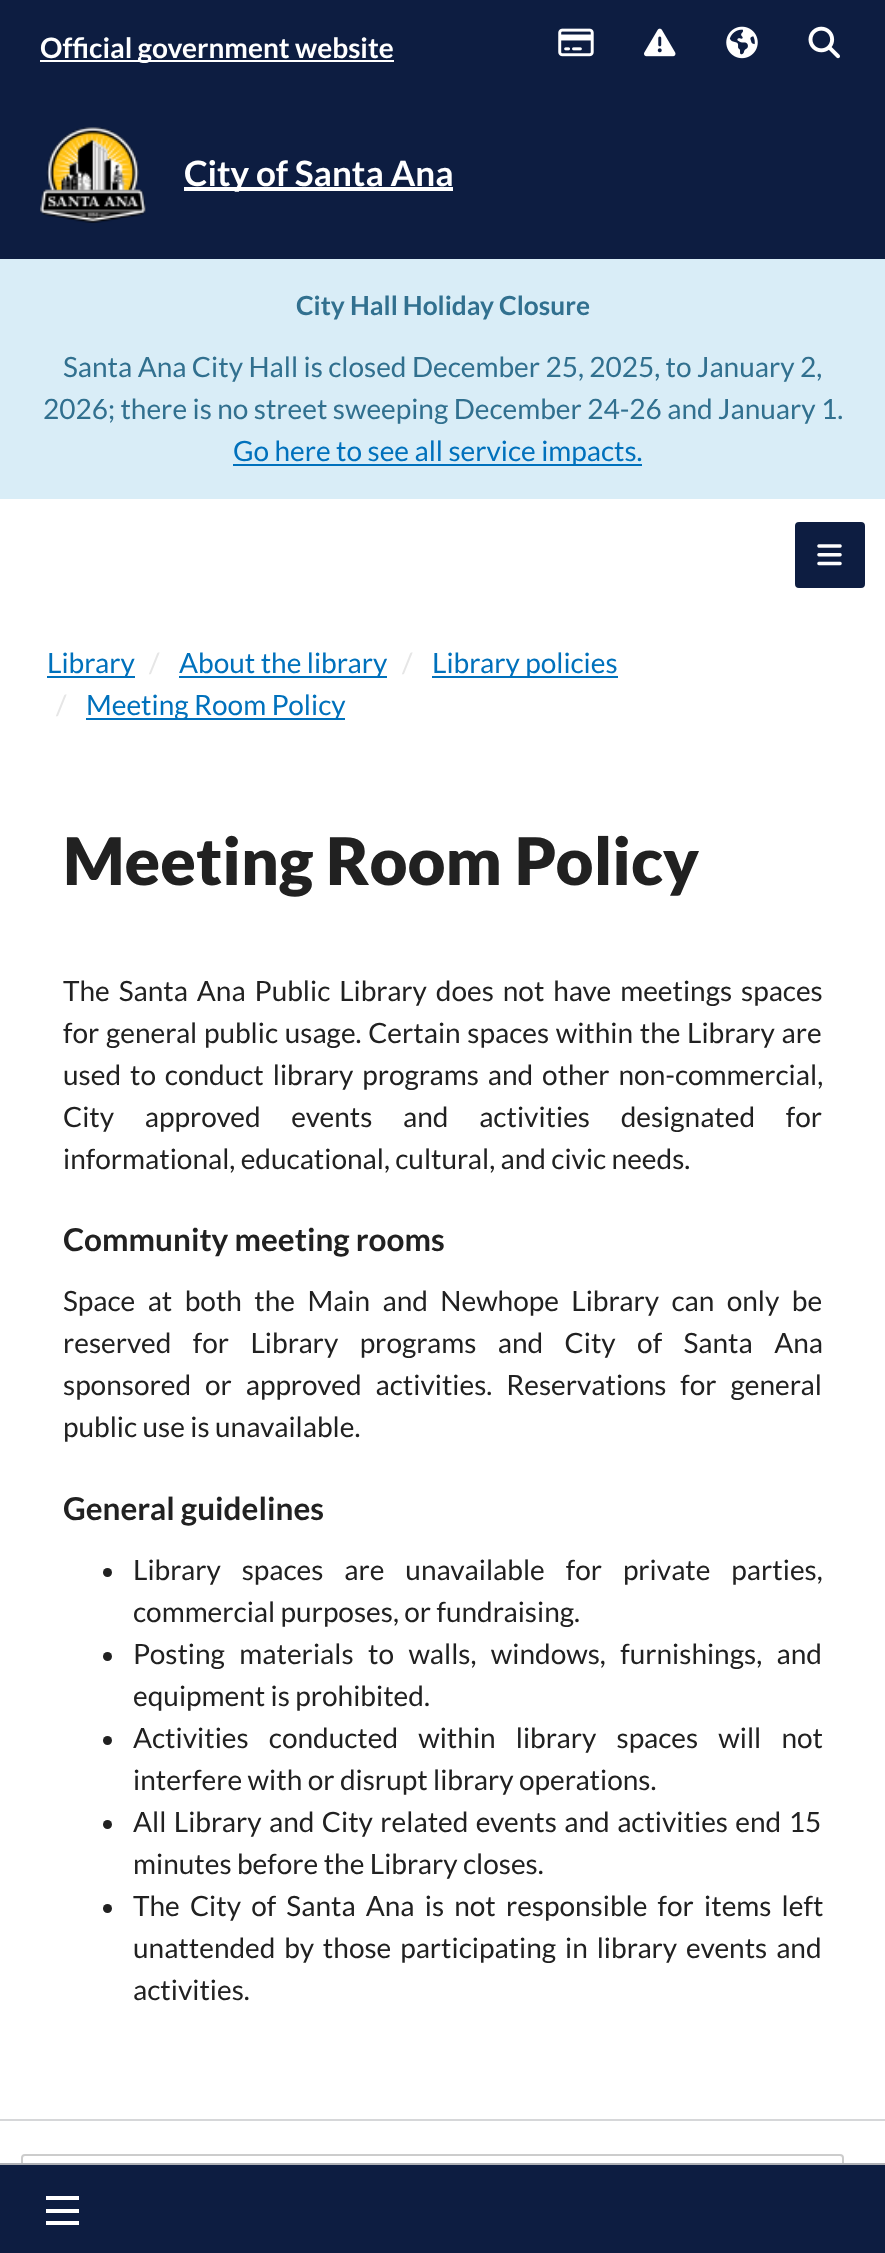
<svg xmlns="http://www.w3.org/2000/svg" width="885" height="2253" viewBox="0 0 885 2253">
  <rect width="100%" height="100%" fill="#fff"/>
  <path d="M0 0h885v259H0z" fill="#0d1d41"/>
  <path d="M40 60h354v2H40z" fill="#fff"/>
  <image x="558" y="28" width="36" height="29" href="img/1.png"/>
  <image x="644" y="28" width="32" height="29" href="img/2.png"/>
  <image x="726" y="26" width="32" height="33" href="img/3.png"/>
  <image x="808" y="26" width="32" height="33" href="img/4.png"/>
  <image x="40" y="127" width="106" height="96" href="img/5.png"/>
  <path d="M184 187h269v4H184z" fill="#fff"/>
  <rect x="22" y="2155" width="821" height="61" rx="3" fill="none" stroke="#ccc" stroke-width="2"/>
  <path d="M0 2165h885v88H0z" fill="#0d1d41"/>
  <path d="M0 2163h885v2H0z" fill="#aeb0b5"/>
  <path d="M46 2209h33v4H46z" fill="#fff"/>
  <path d="M46 2196h33v4H46z" fill="#fff"/>
  <path d="M46 2221h33v4H46z" fill="#fff"/>
  <path d="M0 259h885v240H0z" fill="#d9edf7"/>
  <path d="M233 464h409v2H233z" fill="#0071bc"/>
  <rect x="796" y="523" width="68" height="64" rx="3" fill="#0d1d41" stroke="#0d1d41" stroke-width="2"/>
  <image x="817" y="544" width="25" height="22" href="img/6.png"/>
  <path d="M47 676h88v2H47z" fill="#0071bc"/>
  <path d="M179 676h208v2H179z" fill="#0071bc"/>
  <path d="M432 676h186v2H432z" fill="#0071bc"/>
  <path d="M86 718h259v2H86z" fill="#0071bc"/>
  <circle cx="107.5" cy="1572.5" r="4.5" fill="#212121"/>
  <circle cx="107.5" cy="1656.5" r="4.5" fill="#212121"/>
  <circle cx="107.5" cy="1740.5" r="4.5" fill="#212121"/>
  <circle cx="107.5" cy="1824.5" r="4.5" fill="#212121"/>
  <circle cx="107.5" cy="1908.5" r="4.5" fill="#212121"/>
  <path d="M0 2119h885v2H0z" fill="#d6d7d9"/>
  <text x="40" y="58" font-family="Lato" font-size="28" font-weight="bold" fill="#fff">Official government website</text>
  <text x="184" y="186" font-family="Lato" font-size="35" font-weight="bold" fill="#fff">City of Santa Ana</text>
  <text x="296" y="315" font-family="Lato" font-size="26.25" font-weight="bold" fill="#31708f">City Hall Holiday Closure</text>
  <g font-family="Lato" font-size="28" fill="#31708f">
    <text x="63" y="377">Santa Ana City Hall is closed December 25, 2025, to January 2,</text>
    <text x="43" y="419">2026; there is no street sweeping December 24-26 and January 1.</text>
  </g>
  <g font-family="Lato" font-size="28" fill="#0071bc">
    <text x="233" y="461">Go here to see all service impacts.</text>
    <text x="47" y="673">Library</text>
  </g>
  <text x="149" y="673" font-family="Lato" font-size="28" fill="#e6e6e6">/</text>
  <text x="179" y="673" font-family="Lato" font-size="28" fill="#0071bc">About the library</text>
  <text x="402" y="673" font-family="Lato" font-size="28" fill="#e6e6e6">/</text>
  <text x="432" y="673" font-family="Lato" font-size="28" fill="#0071bc">Library policies</text>
  <text x="56" y="715" font-family="Lato" font-size="28" fill="#e6e6e6">/</text>
  <text x="86" y="715" font-family="Lato" font-size="28" fill="#0071bc">Meeting Room Policy</text>
  <text x="63" y="885" font-family="Lato" font-size="65.6" font-weight="900" fill="#212121">Meeting Room Policy</text>
  <g font-family="Lato" font-size="28" fill="#212121">
    <text x="63" y="1001" word-spacing="3.5">The Santa Ana Public Library does not have meetings spaces</text>
    <text x="63" y="1043" word-spacing="1.25">for general public usage. Certain spaces within the Library are</text>
    <text x="63" y="1085" word-spacing="3.5">used to conduct library programs and other non-commercial,</text>
    <text x="63" y="1127" word-spacing="25.25">City approved events and activities designated for</text>
    <text x="63" y="1169">informational, educational, cultural, and civic needs.</text>
  </g>
  <text x="63" y="1251" font-family="Lato" font-size="31.5" font-weight="bold" fill="#212121">Community meeting rooms</text>
  <g font-family="Lato" font-size="28" fill="#212121">
    <text x="63" y="1311" word-spacing="7">Space at both the Main and Newhope Library can only be</text>
    <text x="63" y="1353" word-spacing="16">reserved for Library programs and City of Santa Ana</text>
    <text x="63" y="1395" word-spacing="8.5">sponsored or approved activities. Reservations for general</text>
    <text x="63" y="1437">public use is unavailable.</text>
  </g>
  <text x="63" y="1520" font-family="Lato" font-size="31.5" font-weight="bold" fill="#212121">General guidelines</text>
  <g font-family="Lato" font-size="28" fill="#212121">
    <text x="133" y="1580" word-spacing="15.5">Library spaces are unavailable for private parties,</text>
    <text x="133" y="1622">commercial purposes, or fundraising.</text>
    <text x="133" y="1664" word-spacing="9">Posting materials to walls, windows, furnishings, and</text>
    <text x="133" y="1706">equipment is prohibited.</text>
    <text x="133" y="1748" word-spacing="14.75">Activities conducted within library spaces will not</text>
    <text x="133" y="1790">interfere with or disrupt library operations.</text>
    <text x="133" y="1832" word-spacing="2">All Library and City related events and activities end 15</text>
    <text x="133" y="1874">minutes before the Library closes.</text>
    <text x="133" y="1916" word-spacing="4.75">The City of Santa Ana is not responsible for items left</text>
    <text x="133" y="1958" word-spacing="3.5">unattended by those participating in library events and</text>
    <text x="133" y="2000">activities.</text>
  </g>
</svg>
